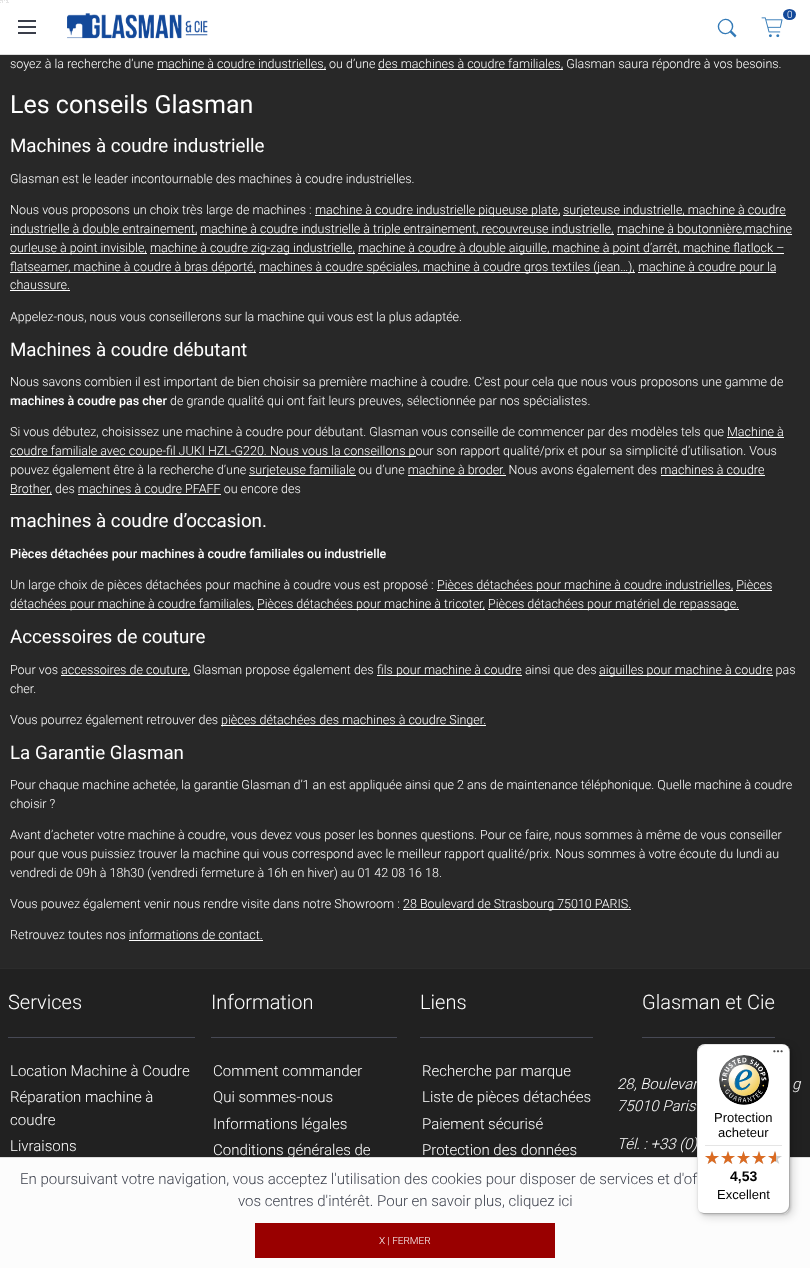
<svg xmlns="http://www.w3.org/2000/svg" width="810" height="1268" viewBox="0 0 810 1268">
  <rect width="100%" height="100%" fill="#282828"/>
  <path d="M0 0h810v54H0z" fill="#fff"/>
  <image x="0" y="0" width="9" height="3" href="img/1.png"/>
  <path d="M0 54h810v1H0z" fill="#ddd"/>
  <image x="67" y="13" width="141" height="26" href="img/2.png"/>
  <ellipse cx="789.5" cy="14.5" rx="6.5" ry="5.5" fill="#13499a"/>
  <image x="761" y="17" width="22" height="21" href="img/3.png"/>
  <path d="M729.5 32L731.5 30.5L736.5 35.5L735 37.5Z" fill="#337ab7"/>
  <path d="M730.5 21.5C737 28 727 38 720.5 31.5C714 25 724 15 730.5 21.5Z" fill="none" stroke="#337ab7" stroke-width="1.4"/>
  <path d="M18 20h18v2H18z" fill="#3a3e4a"/>
  <path d="M18 26h18v2H18z" fill="#3a3e4a"/>
  <path d="M18 32h18v2H18z" fill="#3a3e4a"/>
  <path d="M157 69h169v1H157z" fill="#fff"/>
  <path d="M378 69h185v1H378z" fill="#fff"/>
  <path d="M315 215h245v1H315z" fill="#fff"/>
  <path d="M563 215h223v1H563z" fill="#fff"/>
  <path d="M10 234h187v1H10z" fill="#fff"/>
  <path d="M200 234h414v1H200z" fill="#fff"/>
  <path d="M617 234h175v1H617z" fill="#fff"/>
  <path d="M10 253h137v1H10z" fill="#fff"/>
  <path d="M150 253h205v1H150z" fill="#fff"/>
  <path d="M358 253h426v1H358z" fill="#fff"/>
  <path d="M10 272h246v1H10z" fill="#fff"/>
  <path d="M259 272h376v1H259z" fill="#fff"/>
  <path d="M638 272h138v1H638z" fill="#fff"/>
  <path d="M10 290h60v1H10z" fill="#fff"/>
  <path d="M727 437h57v1H727z" fill="#fff"/>
  <path d="M10 456h406v1H10z" fill="#fff"/>
  <path d="M249 475h107v1H249z" fill="#fff"/>
  <path d="M408 475h98v1H408z" fill="#fff"/>
  <path d="M661 475h104v1H661z" fill="#fff"/>
  <path d="M10 494h42v1H10z" fill="#fff"/>
  <path d="M78 494h143v1H78z" fill="#fff"/>
  <path d="M437 590h296v1H437z" fill="#fff"/>
  <path d="M736 590h36v1H736z" fill="#fff"/>
  <path d="M10 609h244v1H10z" fill="#fff"/>
  <path d="M257 609h228v1H257z" fill="#fff"/>
  <path d="M488 609h251v1H488z" fill="#fff"/>
  <path d="M61 675h129v1H61z" fill="#fff"/>
  <path d="M377 675h145v1H377z" fill="#fff"/>
  <path d="M599 675h174v1H599z" fill="#fff"/>
  <path d="M221 725h265v1H221z" fill="#fff"/>
  <path d="M403 909h228v1H403z" fill="#fff"/>
  <path d="M129 940h134v1H129z" fill="#fff"/>
  <path d="M0 969h810v188H0z" fill="#212121"/>
  <path d="M0 968h810v1H0z" fill="#2c2c2c"/>
  <path d="M8 1037h187v1H8z" fill="#474955"/>
  <path d="M211 1037h186v1H211z" fill="#474955"/>
  <path d="M420 1037h173v1H420z" fill="#474955"/>
  <path d="M642 1037h133v1H642z" fill="#474955"/>
  <text x="787" y="18" font-family="Roboto" font-size="10" font-weight="300" fill="#fff">0</text>
  <g font-family="Roboto" font-size="12.5" font-weight="300" fill="#fff">
    <text x="10" y="68">soyez à la recherche d’une</text>
    <text x="157" y="68">machine à coudre industrielles, ou d’une</text>
    <text x="378" y="68">des machines à coudre familiales, Glasman saura répondre à vos besoins.</text>
  </g>
  <text x="10" y="113" font-family="Roboto" font-size="25" fill="#fff">Les conseils Glasman</text>
  <text x="10" y="152" font-family="Roboto" font-size="18.75" fill="#fff">Machines à coudre industrielle</text>
  <g font-family="Roboto" font-size="12.5" font-weight="300" fill="#fff">
    <text x="10" y="183">Glasman est le leader incontournable des machines à coudre industrielles.</text>
    <text x="10" y="214">Nous vous proposons un choix très large de machines :</text>
    <text x="315" y="214">machine à coudre industrielle piqueuse plate,</text>
    <text x="563" y="214">surjeteuse industrielle, machine à coudre</text>
    <text x="10" y="233">industrielle à double entrainement,</text>
    <text x="200" y="233">machine à coudre industrielle à triple entrainement, recouvreuse industrielle,</text>
    <text x="617" y="233">machine à boutonnière,machine</text>
    <text x="10" y="252">ourleuse à point invisible,</text>
    <text x="150" y="252">machine à coudre zig-zag industrielle,</text>
    <text x="358" y="252">machine à coudre à double aiguille, machine à point d’arrêt, machine flatlock –</text>
    <text x="10" y="271">flatseamer, machine à coudre à bras déporté,</text>
    <text x="259" y="271">machines à coudre spéciales, machine à coudre gros textiles (jean…),</text>
    <text x="638" y="271">machine à coudre pour la</text>
    <text x="10" y="289">chaussure.</text>
    <text x="10" y="321">Appelez-nous, nous vous conseillerons sur la machine qui vous est la plus adaptée.</text>
  </g>
  <text x="10" y="356" font-family="Roboto" font-size="18.75" fill="#fff">Machines à coudre débutant</text>
  <text x="10" y="386" font-family="Roboto" font-size="12.5" font-weight="300" fill="#fff">Nous savons combien il est important de bien choisir sa première machine à coudre. C'est pour cela que nous vous proposons une gamme de</text>
  <text x="10" y="405" font-family="Roboto" font-size="12.5" font-weight="500" fill="#fff">machines à coudre pas cher</text>
  <g font-family="Roboto" font-size="12.5" font-weight="300" fill="#fff">
    <text x="170" y="405">de grande qualité qui ont fait leurs preuves, sélectionnée par nos spécialistes.</text>
    <text x="10" y="436">Si vous débutez, choisissez une machine à coudre pour débutant. Glasman vous conseille de commencer par des modèles tels que Machine à</text>
    <text x="10" y="455">coudre familiale avec coupe-fil JUKI HZL-G220. Nous vous la conseillons pour son rapport qualité/prix et pour sa simplicité d’utilisation. Vous</text>
    <text x="10" y="474">pouvez également être à la recherche d’une</text>
    <text x="249" y="474">surjeteuse familiale ou d’une machine à broder. Nous avons également des machines à coudre</text>
    <text x="10" y="493">Brother, des machines à coudre PFAFF ou encore des</text>
  </g>
  <text x="10" y="527" font-family="Roboto" font-size="18.75" fill="#fff">machines à coudre d’occasion.</text>
  <text x="10" y="558" font-family="Roboto" font-size="12.5" font-weight="500" fill="#fff">Pièces détachées pour machines à coudre familiales ou industrielle</text>
  <g font-family="Roboto" font-size="12.5" font-weight="300" fill="#fff">
    <text x="10" y="589">Un large choix de pièces détachées pour machine à coudre vous est proposé :</text>
    <text x="437" y="589">Pièces détachées pour machine à coudre industrielles, Pièces</text>
    <text x="10" y="608">détachées pour machine à coudre familiales,</text>
    <text x="257" y="608">Pièces détachées pour machine à tricoter,</text>
    <text x="488" y="608">Pièces détachées pour matériel de repassage.</text>
  </g>
  <text x="10" y="643" font-family="Roboto" font-size="18.75" fill="#fff">Accessoires de couture</text>
  <g font-family="Roboto" font-size="12.5" font-weight="300" fill="#fff">
    <text x="10" y="674">Pour vos</text>
    <text x="61" y="674">accessoires de couture, Glasman propose également des</text>
    <text x="377" y="674">fils pour machine à coudre ainsi que des</text>
    <text x="599" y="674">aiguilles pour machine à coudre pas</text>
    <text x="10" y="693">cher.</text>
    <text x="10" y="724">Vous pourrez également retrouver des</text>
    <text x="221" y="724">pièces détachées des machines à coudre Singer.</text>
  </g>
  <text x="10" y="759" font-family="Roboto" font-size="18.75" fill="#fff">La Garantie Glasman</text>
  <g font-family="Roboto" font-size="12.5" font-weight="300" fill="#fff">
    <text x="10" y="789">Pour chaque machine achetée, la garantie Glasman d’1 an est appliquée ainsi que 2 ans de maintenance téléphonique. Quelle machine à coudre</text>
    <text x="10" y="808">choisir ?</text>
    <text x="10" y="839">Avant d’acheter votre machine à coudre, vous devez vous poser les bonnes questions. Pour ce faire, nous sommes à même de vous conseiller</text>
    <text x="10" y="858">pour que vous puissiez trouver la machine qui vous correspond avec le meilleur rapport qualité/prix. Nous sommes à votre écoute du lundi au</text>
    <text x="10" y="877">vendredi de 09h à 18h30 (vendredi fermeture à 16h en hiver) au 01 42 08 16 18.</text>
    <text x="10" y="908">Vous pouvez également venir nous rendre visite dans notre Showroom :</text>
    <text x="403" y="908">28 Boulevard de Strasbourg 75010 PARIS.</text>
    <text x="10" y="939">Retrouvez toutes nos informations de contact.</text>
  </g>
  <text x="8" y="1009" font-family="Roboto" font-size="20" font-weight="300" fill="#fff">Services</text>
  <g font-family="Roboto" font-size="15" font-weight="300" fill="#fff">
    <text x="10" y="1076">Location Machine à Coudre</text>
    <text x="10" y="1102">Réparation machine à</text>
    <text x="10" y="1125">coudre</text>
    <text x="10" y="1151">Livraisons</text>
  </g>
  <text x="211" y="1009" font-family="Roboto" font-size="20" font-weight="300" fill="#fff">Information</text>
  <g font-family="Roboto" font-size="15" font-weight="300" fill="#fff">
    <text x="213" y="1076">Comment commander</text>
    <text x="213" y="1102">Qui sommes-nous</text>
    <text x="213" y="1129">Informations légales</text>
    <text x="213" y="1155">Conditions générales de</text>
  </g>
  <text x="420" y="1009" font-family="Roboto" font-size="20" font-weight="300" fill="#fff">Liens</text>
  <g font-family="Roboto" font-size="15" font-weight="300" fill="#fff">
    <text x="422" y="1076">Recherche par marque</text>
    <text x="422" y="1102">Liste de pièces détachées</text>
    <text x="422" y="1129">Paiement sécurisé</text>
    <text x="422" y="1155">Protection des données</text>
  </g>
  <text x="642" y="1009" font-family="Roboto" font-size="20" font-weight="300" fill="#fff">Glasman et Cie</text>
  <g font-family="Roboto" font-size="15" font-weight="300" font-style="italic" fill="#fff">
    <text x="617" y="1089">28, Boulevar</text>
    <text x="792" y="1089">g</text>
    <text x="617" y="1111">75010 Paris</text>
    <text x="617" y="1149">Tél. : +33 (0)</text>
  </g>
  <path d="M0 1158h810v110H0z" fill="#fcfcfc"/>
  <path d="M0 1157h810v1H0z" fill="#ddd"/>
  <rect x="698" y="1045" width="93" height="170" rx="8" fill="#00000026" filter="blur(1px)"/>
  <rect x="700" y="1047" width="93" height="170" rx="8" fill="#00000026" filter="blur(4px)"/>
  <rect x="697" y="1044" width="93" height="170" rx="8" fill="#fff"/>
  <path d="M706 1045H783C785 1045 787 1046 789 1048C787 1046 785 1044 782 1044H705C701 1044 697 1048 697 1052V1206C697 1209 699 1211 701 1213C699 1211 698 1209 698 1207V1053C698 1049 702 1045 706 1045Z" fill="#0000001a"/>
  <path d="M698 1210C700 1212 702 1214 705 1214H782C786 1214 790 1210 790 1206V1052C790 1049 788 1047 786 1045C788 1047 789 1049 789 1051V1205C789 1209 785 1213 781 1213H704C702 1213 700 1212 698 1210Z" fill="#00000033"/>
  <path d="M699 1211C700 1213 703 1214 705 1214H782C786 1214 790 1210 790 1206V1052C790 1050 789 1047 787 1046C788 1047 789 1049 789 1051V1205C789 1210 786 1213 781 1213H704C702 1213 700 1212 699 1211Z" fill="#32323233"/>
  <image x="773" y="1050" width="10" height="3" href="img/4.png"/>
  <image x="768" y="1151" width="14" height="13" href="img/6.png"/>
  <image x="768" y="1151" width="8" height="13" href="img/10.png"/>
  <image x="752" y="1151" width="14" height="13" href="img/6.png"/>
  <image x="752" y="1151" width="14" height="13" href="img/8.png"/>
  <image x="737" y="1151" width="13" height="13" href="img/7.png"/>
  <image x="737" y="1151" width="13" height="13" href="img/9.png"/>
  <image x="721" y="1151" width="14" height="13" href="img/6.png"/>
  <image x="721" y="1151" width="14" height="13" href="img/8.png"/>
  <image x="705" y="1151" width="14" height="13" href="img/6.png"/>
  <image x="705" y="1151" width="14" height="13" href="img/8.png"/>
  <text x="717" y="1199" font-family="Liberation Sans" font-size="13" fill="#000">Excellent</text>
  <text x="730" y="1181" font-family="Liberation Sans" font-size="14" font-weight="bold" fill="#000">4,53</text>
  <g font-family="Liberation Sans" font-size="13" fill="#000">
    <text x="718" y="1137">acheteur</text>
    <text x="714" y="1122">Protection</text>
  </g>
  <image x="719" y="1055" width="50" height="50" href="img/5.png"/>
  <path d="M705 1145h77v1H705z" fill="#e5e5e5"/>
  <path d="M782 1214C786.5 1214 790 1210.5 790 1206C790 1210 786 1214 782 1214Z" fill="#ffffff4d"/>
  <g font-family="Roboto" font-size="15" font-weight="300" fill="#3a3e4a">
    <text x="20" y="1184">En poursuivant votre navigation, vous acceptez l'utilisation des cookies pour disposer de services et d'of</text>
    <text x="238" y="1206">vos centres d'intérêt. Pour en savoir plus, cliquez ici</text>
  </g>
  <path d="M255 1223h300v35H255z" fill="#900"/>
  <text x="379" y="1244" font-family="Roboto" font-size="10" font-weight="300" fill="#fff">X | FERMER</text>
</svg>
